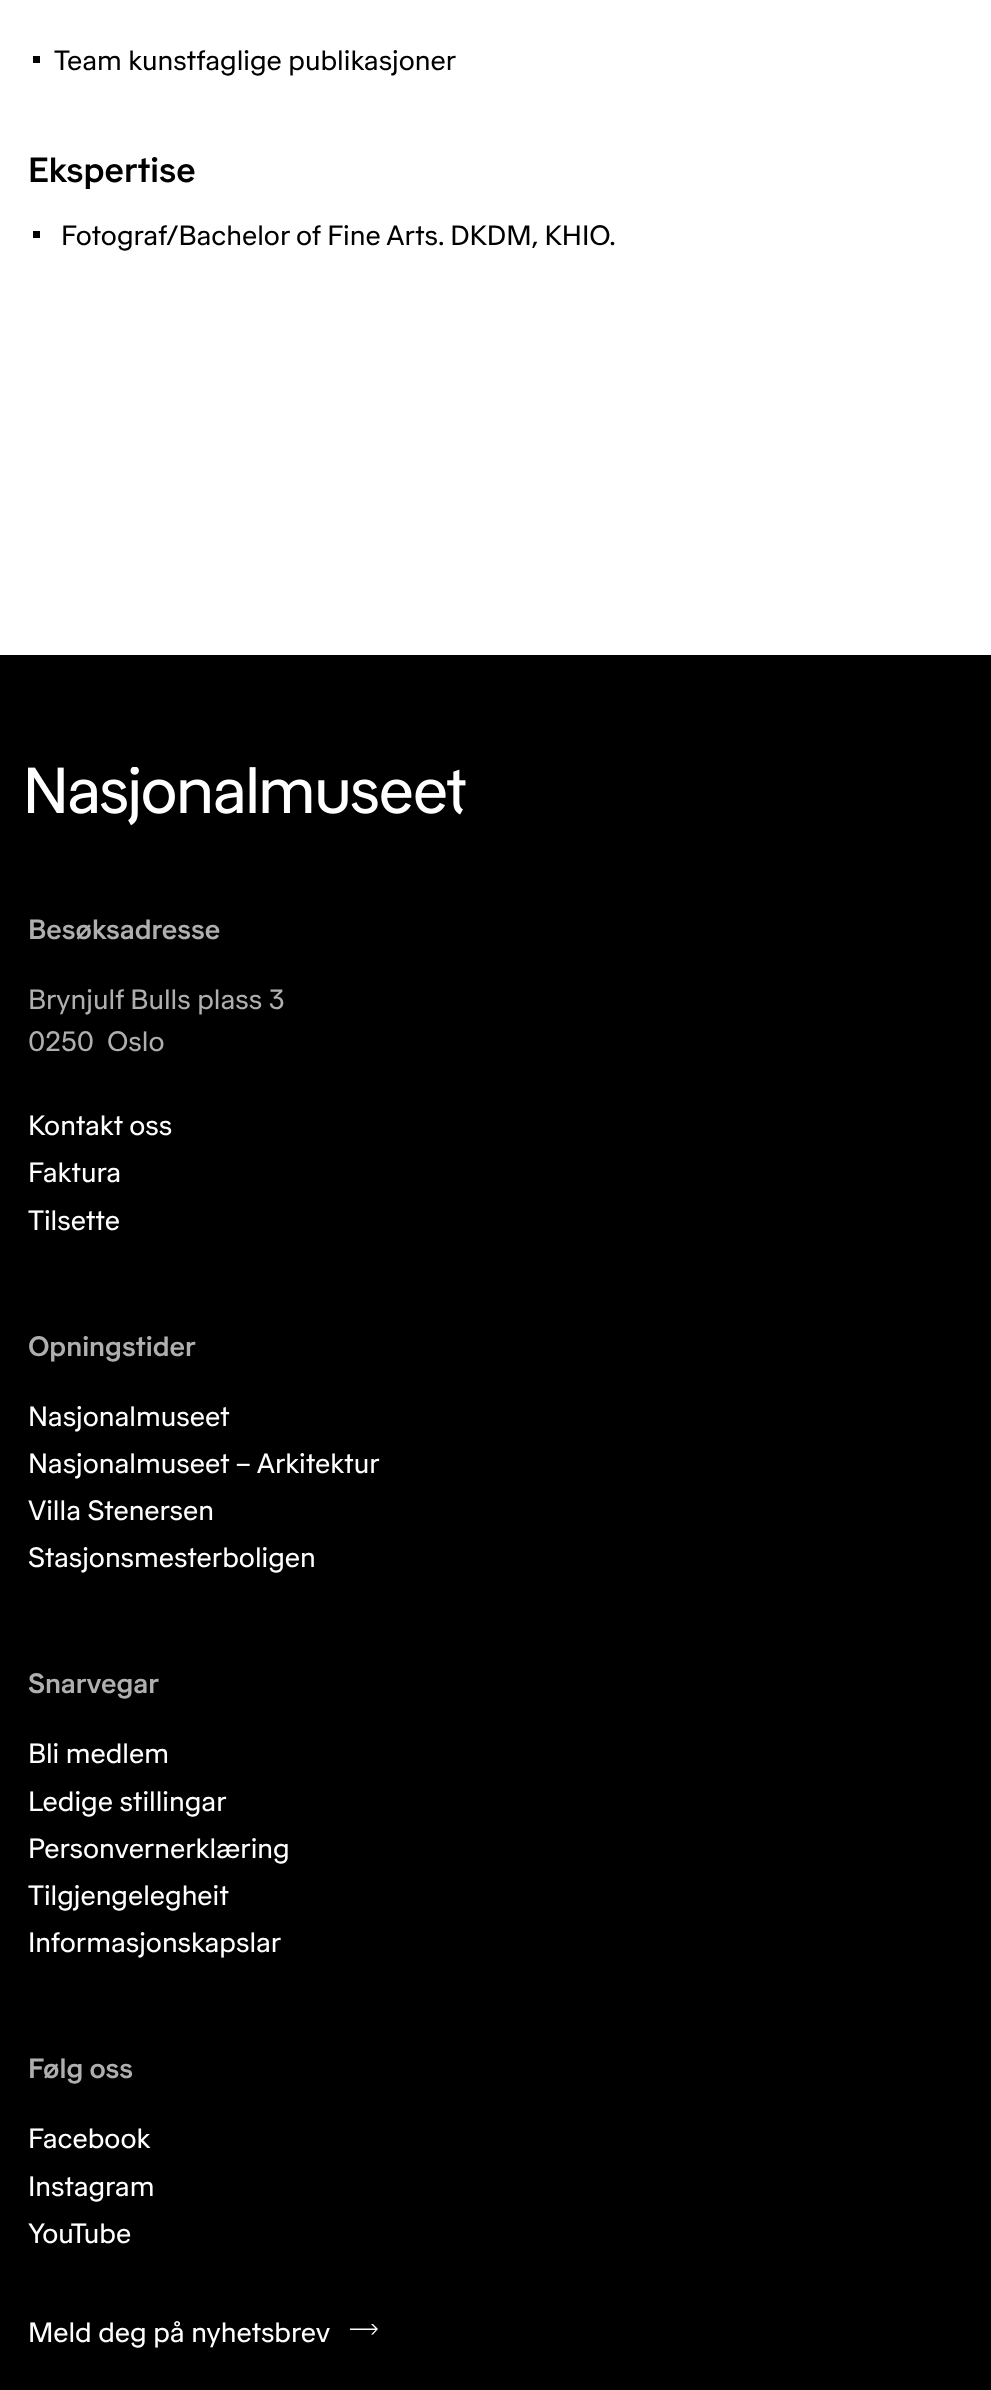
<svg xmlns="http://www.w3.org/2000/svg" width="991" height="2390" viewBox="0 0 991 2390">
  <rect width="100%" height="100%" fill="#fff"/>
  <path d="M33 56h7v7H33z" fill="#000"/>
  <path d="M33 231h7v7H33z" fill="#000"/>
  <path d="M0 655h991v1735H0z" fill="#000"/>
  <image x="28" y="767" width="438" height="59" href="img/1.png"/>
  <path d="M350 2328.5H375.5L371 2324H373L378 2329L373 2334.5H371L375.5 2330H350Z" fill="#fff"/>
  <text x="54" y="70" font-family="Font" font-size="28" fill="#000">Team kunstfaglige publikasjoner</text>
  <text x="28" y="182" font-family="Font" font-size="35" font-weight="500" fill="#000">Ekspertise</text>
  <text x="61" y="245" font-family="Font" font-size="28" fill="#000">Fotograf/Bachelor of Fine Arts. DKDM, KHIO.</text>
  <text x="28" y="939" font-family="Font" font-size="28" font-weight="500" fill="#afafaf">Besøksadresse</text>
  <g font-family="Font" font-size="28" fill="#afafaf">
    <text x="28" y="1009">Brynjulf Bulls plass 3</text>
    <text x="28" y="1051">0250</text>
    <text x="107" y="1051">Oslo</text>
  </g>
  <g font-family="Font" font-size="28" fill="#fff">
    <text x="28" y="1135">Kontakt oss</text>
    <text x="28" y="1182">Faktura</text>
    <text x="28" y="1230">Tilsette</text>
  </g>
  <text x="28" y="1356" font-family="Font" font-size="28" font-weight="500" fill="#afafaf">Opningstider</text>
  <g font-family="Font" font-size="28" fill="#fff">
    <text x="28" y="1426">Nasjonalmuseet</text>
    <text x="28" y="1473">Nasjonalmuseet – Arkitektur</text>
    <text x="28" y="1520">Villa Stenersen</text>
    <text x="28" y="1567">Stasjonsmesterboligen</text>
  </g>
  <text x="28" y="1693" font-family="Font" font-size="28" font-weight="500" fill="#afafaf">Snarvegar</text>
  <g font-family="Font" font-size="28" fill="#fff">
    <text x="28" y="1763">Bli medlem</text>
    <text x="28" y="1811">Ledige stillingar</text>
    <text x="28" y="1858">Personvernerklæring</text>
    <text x="28" y="1905">Tilgjengelegheit</text>
    <text x="28" y="1952">Informasjonskapslar</text>
  </g>
  <text x="28" y="2078" font-family="Font" font-size="28" font-weight="500" fill="#afafaf">Følg oss</text>
  <g font-family="Font" font-size="28" fill="#fff">
    <text x="28" y="2148">Facebook</text>
    <text x="28" y="2196">Instagram</text>
    <text x="28" y="2243">YouTube</text>
    <text x="28" y="2342">Meld deg på nyhetsbrev</text>
  </g>
</svg>
